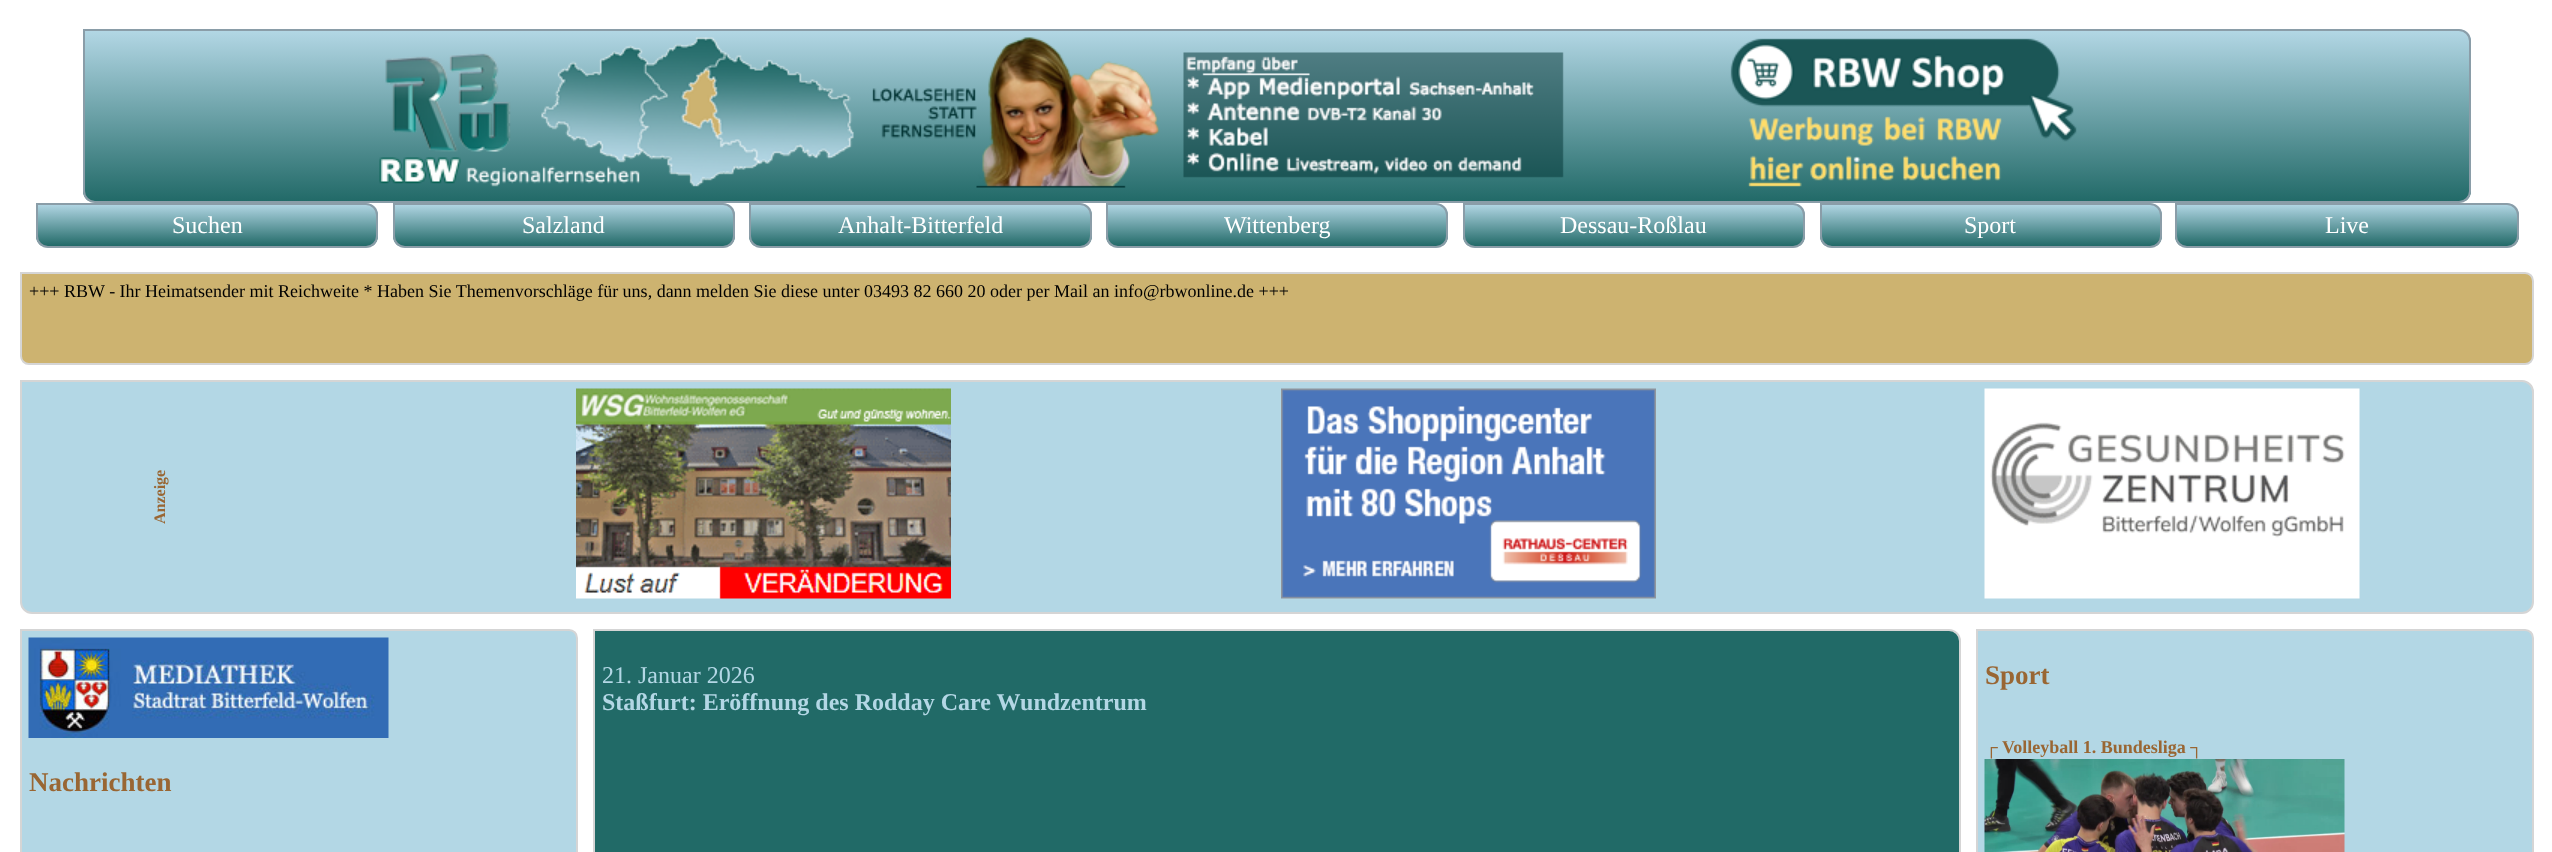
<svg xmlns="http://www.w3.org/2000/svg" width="2552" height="852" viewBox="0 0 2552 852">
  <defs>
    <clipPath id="clip1"><path d="M83 29H2459C2465.5 29 2471 34.5 2471 41V191C2471 197.5 2465.5 203 2459 203H95C88.5 203 83 197.5 83 191Z"/></clipPath>
    <linearGradient id="g1" gradientUnits="userSpaceOnUse" x1="1277" y1="30" x2="1277" y2="201"><stop offset="0" stop-color="#b3d7e5"/><stop offset="1" stop-color="#226a68"/></linearGradient>
    <clipPath id="clip2"><path d="M36 203H366C372.5 203 378 208.5 378 215V236C378 242.5 372.5 248 366 248H48C41.5 248 36 242.5 36 236Z"/></clipPath>
    <linearGradient id="g2" gradientUnits="userSpaceOnUse" x1="207" y1="204" x2="207" y2="246"><stop offset="0" stop-color="#b3d7e5"/><stop offset="1" stop-color="#226a68"/></linearGradient>
    <clipPath id="clip3"><path d="M393 203H723C729.5 203 735 208.5 735 215V236C735 242.5 729.5 248 723 248H405C398.5 248 393 242.5 393 236Z"/></clipPath>
    <linearGradient id="g3" gradientUnits="userSpaceOnUse" x1="564" y1="204" x2="564" y2="246"><stop offset="0" stop-color="#b3d7e5"/><stop offset="1" stop-color="#226a68"/></linearGradient>
    <clipPath id="clip4"><path d="M749 203H1080C1086.5 203 1092 208.5 1092 215V236C1092 242.5 1086.5 248 1080 248H761C754.5 248 749 242.5 749 236Z"/></clipPath>
    <linearGradient id="g4" gradientUnits="userSpaceOnUse" x1="920" y1="204" x2="920" y2="246"><stop offset="0" stop-color="#b3d7e5"/><stop offset="1" stop-color="#226a68"/></linearGradient>
    <clipPath id="clip5"><path d="M1106 203H1436C1442.5 203 1448 208.5 1448 215V236C1448 242.5 1442.5 248 1436 248H1118C1111.5 248 1106 242.5 1106 236Z"/></clipPath>
    <linearGradient id="g5" gradientUnits="userSpaceOnUse" x1="1277" y1="204" x2="1277" y2="246"><stop offset="0" stop-color="#b3d7e5"/><stop offset="1" stop-color="#226a68"/></linearGradient>
    <clipPath id="clip6"><path d="M1463 203H1793C1799.5 203 1805 208.5 1805 215V236C1805 242.5 1799.5 248 1793 248H1475C1468.5 248 1463 242.5 1463 236Z"/></clipPath>
    <linearGradient id="g6" gradientUnits="userSpaceOnUse" x1="1634" y1="204" x2="1634" y2="246"><stop offset="0" stop-color="#b3d7e5"/><stop offset="1" stop-color="#226a68"/></linearGradient>
    <clipPath id="clip7"><path d="M1820 203H2150C2156.5 203 2162 208.5 2162 215V236C2162 242.5 2156.5 248 2150 248H1832C1825.5 248 1820 242.5 1820 236Z"/></clipPath>
    <linearGradient id="g7" gradientUnits="userSpaceOnUse" x1="1991" y1="204" x2="1991" y2="246"><stop offset="0" stop-color="#b3d7e5"/><stop offset="1" stop-color="#226a68"/></linearGradient>
    <clipPath id="clip8"><path d="M2175 203H2507C2513.5 203 2519 208.5 2519 215V236C2519 242.5 2513.5 248 2507 248H2187C2180.5 248 2175 242.5 2175 236Z"/></clipPath>
    <linearGradient id="g8" gradientUnits="userSpaceOnUse" x1="2347" y1="204" x2="2347" y2="246"><stop offset="0" stop-color="#b3d7e5"/><stop offset="1" stop-color="#226a68"/></linearGradient>
  </defs>
  <rect width="100%" height="100%" fill="#fff"/>
  <g clip-path="url(#clip1)">
    <path d="M83 30h2388v171H83z" fill="url(#g1)"/>
  </g>
  <path d="M84 30H2459C2465 30 2470 35 2470 41V191C2470 197 2465 202 2459 202H95C89 202 84 197 84 191Z" fill="none" stroke="#8a9da8" stroke-width="2"/>
  <image x="379" y="37" width="598" height="150" href="img/1.png"/>
  <image x="976" y="37" width="588" height="151" href="img/2.png"/>
  <image x="1730" y="38" width="347" height="149" href="img/3.png"/>
  <g clip-path="url(#clip2)">
    <path d="M36 204h342v42H36z" fill="url(#g2)"/>
  </g>
  <path d="M37 204H366C372 204 377 209 377 215V236C377 242 372 247 366 247H48C42 247 37 242 37 236Z" fill="none" stroke="#8a9da8" stroke-width="2"/>
  <g clip-path="url(#clip3)">
    <path d="M393 204h342v42H393z" fill="url(#g3)"/>
  </g>
  <path d="M394 204H723C729 204 734 209 734 215V236C734 242 729 247 723 247H405C399 247 394 242 394 236Z" fill="none" stroke="#8a9da8" stroke-width="2"/>
  <g clip-path="url(#clip4)">
    <path d="M749 204h343v42H749z" fill="url(#g4)"/>
  </g>
  <path d="M750 204H1080C1086 204 1091 209 1091 215V236C1091 242 1086 247 1080 247H761C755 247 750 242 750 236Z" fill="none" stroke="#8a9da8" stroke-width="2"/>
  <g clip-path="url(#clip5)">
    <path d="M1106 204h342v42H1106z" fill="url(#g5)"/>
  </g>
  <path d="M1107 204H1436C1442 204 1447 209 1447 215V236C1447 242 1442 247 1436 247H1118C1112 247 1107 242 1107 236Z" fill="none" stroke="#8a9da8" stroke-width="2"/>
  <g clip-path="url(#clip6)">
    <path d="M1463 204h342v42H1463z" fill="url(#g6)"/>
  </g>
  <path d="M1464 204H1793C1799 204 1804 209 1804 215V236C1804 242 1799 247 1793 247H1475C1469 247 1464 242 1464 236Z" fill="none" stroke="#8a9da8" stroke-width="2"/>
  <g clip-path="url(#clip7)">
    <path d="M1820 204h342v42H1820z" fill="url(#g7)"/>
  </g>
  <path d="M1821 204H2150C2156 204 2161 209 2161 215V236C2161 242 2156 247 2150 247H1832C1826 247 1821 242 1821 236Z" fill="none" stroke="#8a9da8" stroke-width="2"/>
  <g clip-path="url(#clip8)">
    <path d="M2175 204h344v42H2175z" fill="url(#g8)"/>
  </g>
  <path d="M2176 204H2507C2513 204 2518 209 2518 215V236C2518 242 2513 247 2507 247H2187C2181 247 2176 242 2176 236Z" fill="none" stroke="#8a9da8" stroke-width="2"/>
  <path d="M21 273H2525C2529.5 273 2533 276.5 2533 281V356C2533 360.5 2529.5 364 2525 364H29C24.5 364 21 360.5 21 356Z" fill="#cdb370" stroke="#d5d5d5" stroke-width="2"/>
  <path d="M21 381H2522C2528 381 2533 386 2533 392V602C2533 608 2528 613 2522 613H32C26 613 21 608 21 602Z" fill="#b3d7e5" stroke="#d5d5d5" stroke-width="2"/>
  <image x="576" y="388" width="375" height="211" href="img/4.png"/>
  <image x="1281" y="388" width="375" height="211" href="img/5.png"/>
  <image x="1984" y="388" width="376" height="211" href="img/6.png"/>
  <path d="M594 630H1949C1955 630 1960 635 1960 641V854C1960 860 1955 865 1949 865H605C599 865 594 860 594 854Z" fill="#216a67" stroke="#d5d5d5" stroke-width="2"/>
  <path d="M1977 630H2525C2529.5 630 2533 633.5 2533 638V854C2533 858.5 2529.5 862 2525 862H1985C1980.5 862 1977 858.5 1977 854Z" fill="#b3d7e5" stroke="#d5d5d5" stroke-width="2"/>
  <image x="1984" y="759" width="361" height="93" href="img/7.png"/>
  <path d="M21 630H569C573.5 630 577 633.5 577 638V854C577 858.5 573.5 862 569 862H29C24.5 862 21 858.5 21 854Z" fill="#b3d7e5" stroke="#d5d5d5" stroke-width="2"/>
  <image x="28" y="637" width="361" height="101" href="img/8.png"/>
  <g font-family="Liberation Serif" font-size="24" fill="#fff">
    <text x="172" y="233">Suchen</text>
    <text x="522" y="233">Salzland</text>
    <text x="838" y="233">Anhalt-Bitterfeld</text>
    <text x="1224" y="233">Wittenberg</text>
    <text x="1560" y="233">Dessau-Roßlau</text>
    <text x="1964" y="233">Sport</text>
    <text x="2325" y="233">Live</text>
  </g>
  <text x="29" y="297" font-family="Liberation Serif" font-size="18" fill="#000">+++ RBW - Ihr Heimatsender mit Reichweite * Haben Sie Themenvorschläge für uns, dann melden Sie diese unter 03493 82 660 20 oder per Mail an info@rbwonline.de +++</text>
  <text x="165" y="524" transform="rotate(-90 165 524)" font-family="Liberation Serif" font-size="16" font-weight="bold" fill="#963">Anzeige</text>
  <text x="602" y="683" font-family="Liberation Serif" font-size="24" fill="#b3d7e5">21. Januar 2026</text>
  <text x="602" y="710" font-family="Liberation Serif" font-size="24" font-weight="bold" fill="#b3d7e5">Staßfurt: Eröffnung des Rodday Care Wundzentrum</text>
  <text x="1985" y="684" font-family="Liberation Serif" font-size="27" font-weight="bold" fill="#963">Sport</text>
  <text x="1985" y="753" font-family="Liberation Serif" font-size="18" font-weight="bold" fill="#963">┌ Volleyball 1. Bundesliga ┐</text>
  <text x="29" y="791" font-family="Liberation Serif" font-size="27" font-weight="bold" fill="#963">Nachrichten</text>
</svg>
